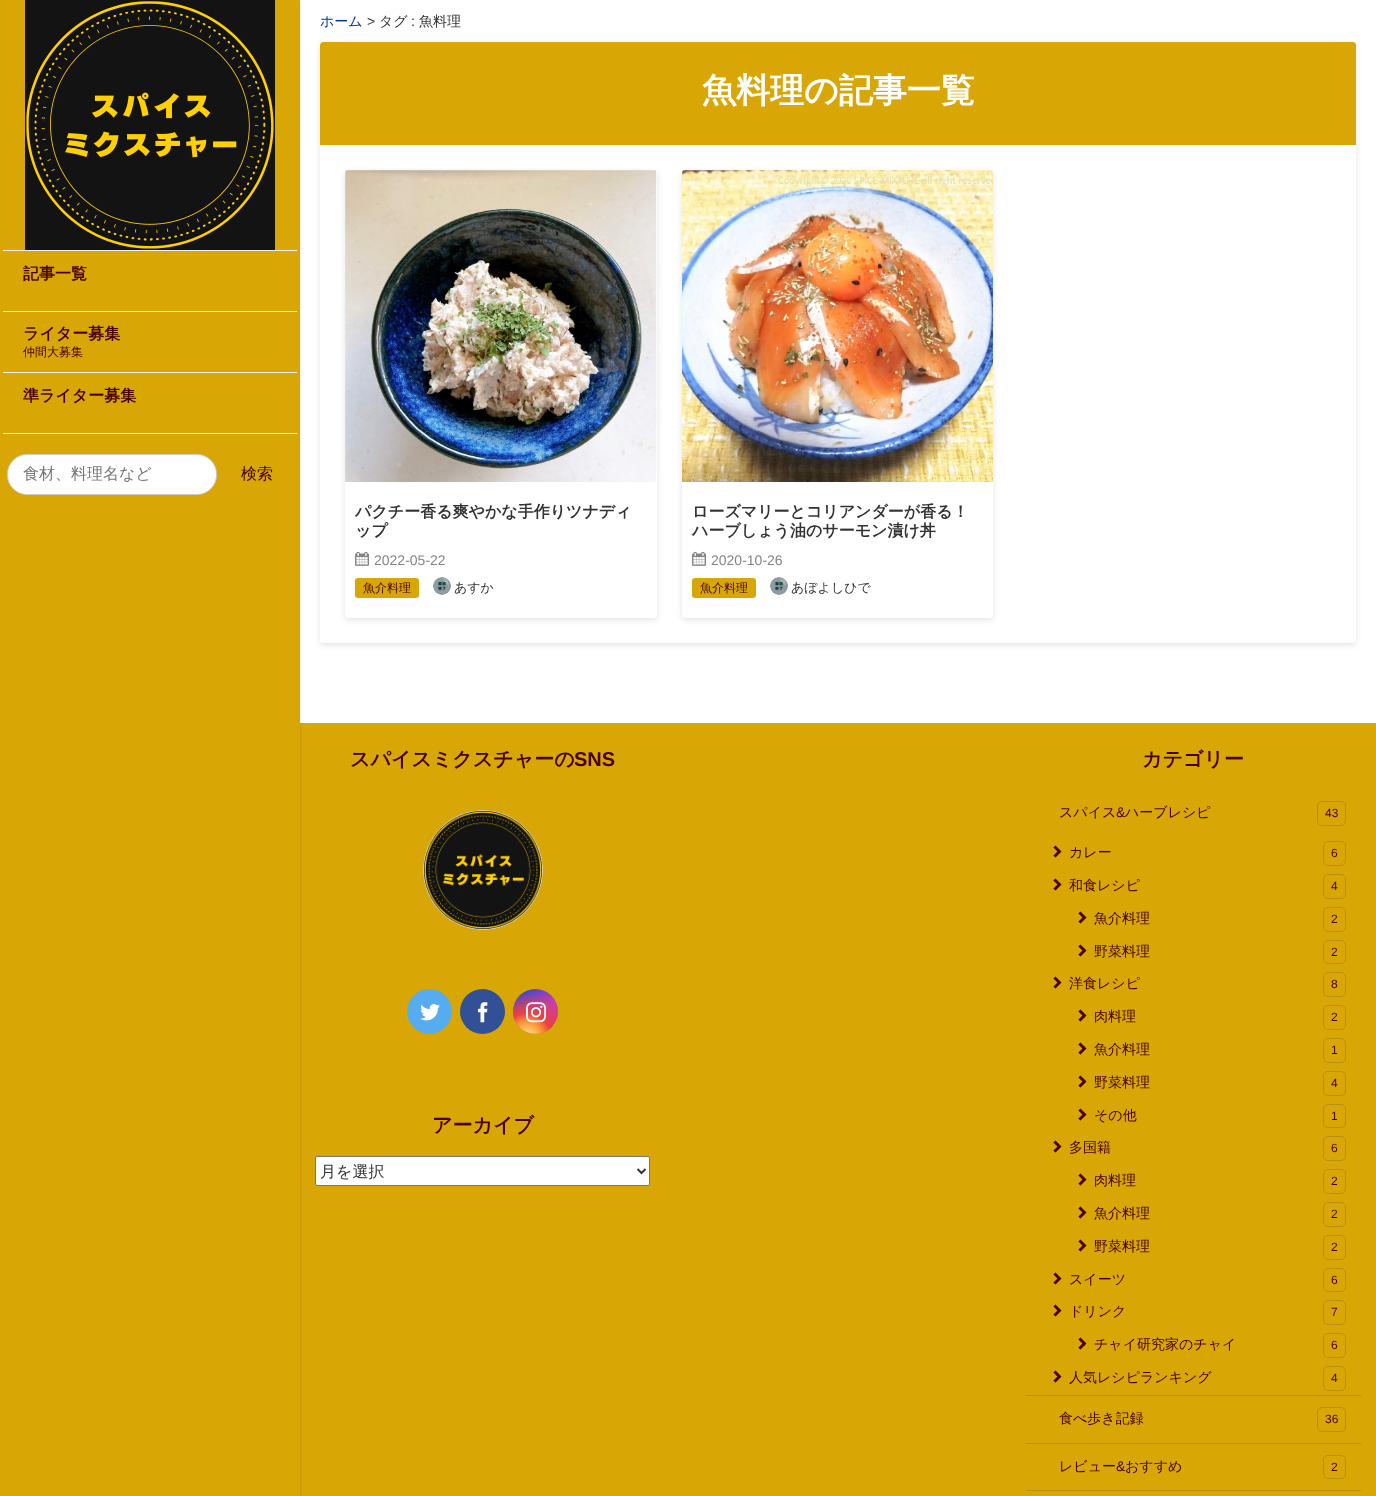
<svg xmlns="http://www.w3.org/2000/svg" width="1376" height="1496" viewBox="0 0 1376 1496">
  <defs>
    <clipPath id="clip1"><path d="M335 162H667V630H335ZM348 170H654C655.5 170 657 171.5 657 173V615C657 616.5 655.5 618 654 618H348C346.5 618 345 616.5 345 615V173C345 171.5 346.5 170 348 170Z" clip-rule="evenodd"/></clipPath>
    <clipPath id="clip2"><path d="M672 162H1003V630H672ZM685 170H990C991.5 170 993 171.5 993 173V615C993 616.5 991.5 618 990 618H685C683.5 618 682 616.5 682 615V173C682 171.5 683.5 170 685 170Z" clip-rule="evenodd"/></clipPath>
    <linearGradient id="g1" gradientUnits="userSpaceOnUse" x1="513" y1="989" x2="558" y2="1034"><stop offset="0.12" stop-color="#234bd7"/><stop offset="0.58" stop-color="#c33cbe"/></linearGradient>
    <radialGradient id="g2" gradientUnits="userSpaceOnUse" cx="527" cy="1037" r="57"><stop offset="0" stop-color="#ffe17d"/><stop offset="0.1" stop-color="#ffcd69"/><stop offset="0.28" stop-color="#fa9137"/><stop offset="0.42" stop-color="#eb4141"/><stop offset="0.82" stop-color="#eb4141" stop-opacity="0"/></radialGradient>
  </defs>
  <rect width="100%" height="100%" fill="#fff"/>
  <path d="M300 723h1076v773H300z" fill="#d8a706"/>
  <path d="M0 1h300v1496H0z" fill="#00000026" filter="blur(1.5px)"/>
  <path d="M0 0h300v1496H0z" fill="#d8a706"/>
  <image x="25" y="0" width="250" height="250" href="img/1.png"/>
  <path d="M3 250h294v1H3z" fill="#efefef"/>
  <path d="M3 311h294v1H3z" fill="#efefef"/>
  <path d="M3 372h294v1H3z" fill="#efefef"/>
  <path d="M3 433h294v1H3z" fill="#efefef"/>
  <rect x="7.5" y="454.5" width="209" height="40" rx="19.5" fill="#fff" stroke="#ccc"/>
  <rect x="320" y="44" width="1036" height="601" rx="3" fill="#0000001c" filter="blur(3px)"/>
  <rect x="320" y="42" width="1036" height="601" rx="3" fill="#fff"/>
  <path d="M323 42H1353C1354.5 42 1356 43.5 1356 45V145H320V45C320 43.5 321.5 42 323 42Z" fill="#d8a706"/>
  <g clip-path="url(#clip1)">
    <rect x="345" y="172" width="312" height="448" rx="3" fill="#0000001c" filter="blur(3px)"/>
  </g>
  <image x="345" y="170" width="312" height="312" href="img/2.png"/>
  <image x="355" y="551" width="15" height="15" href="img/3.png"/>
  <rect x="355" y="578" width="64" height="20" rx="3" fill="#d8a706"/>
  <image x="433" y="577" width="18" height="18" href="img/4.png"/>
  <g clip-path="url(#clip2)">
    <rect x="682" y="172" width="311" height="448" rx="3" fill="#0000001c" filter="blur(3px)"/>
  </g>
  <image x="682" y="170" width="311" height="312" href="img/5.png"/>
  <image x="692" y="551" width="15" height="15" href="img/3.png"/>
  <rect x="692" y="578" width="64" height="20" rx="3" fill="#d8a706"/>
  <image x="770" y="577" width="18" height="18" href="img/6.png"/>
  <circle cx="483" cy="870" r="59.5" fill="#dedede" stroke="#ccc"/>
  <image x="424" y="811" width="118" height="118" href="img/7.png"/>
  <circle cx="429.5" cy="1011.5" r="22.5" fill="#55acee"/>
  <image x="420" y="1004" width="20" height="17" href="img/8.png"/>
  <circle cx="482.5" cy="1011.5" r="22.5" fill="#315096"/>
  <image x="478" y="1002" width="10" height="21" href="img/9.png"/>
  <circle cx="535.5" cy="1011.5" r="22.5" fill="url(#g1)"/>
  <circle cx="535.5" cy="1011.5" r="22.5" fill="url(#g2)"/>
  <image x="526" y="1002" width="20" height="21" href="img/10.png"/>
  <rect x="315.5" y="1156.5" width="334" height="29" rx="1.5" fill="#fff" stroke="#767676"/>
  <path d="M637.5 1169L641.5 1173L645.5 1169" fill="none" stroke="#333" stroke-width="2"/>
  <rect x="1317.5" y="801.5" width="28" height="24" rx="4.5" fill="none" stroke="#b7900f"/>
  <image x="1053" y="845" width="9" height="13" href="img/11.png"/>
  <rect x="1323.5" y="841.5" width="22" height="24" rx="4.5" fill="none" stroke="#b7900f"/>
  <image x="1053" y="878" width="9" height="13" href="img/11.png"/>
  <rect x="1323.5" y="874.5" width="22" height="24" rx="4.5" fill="none" stroke="#b7900f"/>
  <image x="1078" y="911" width="9" height="13" href="img/11.png"/>
  <rect x="1323.5" y="907.5" width="22" height="24" rx="4.5" fill="none" stroke="#b7900f"/>
  <image x="1078" y="944" width="9" height="13" href="img/11.png"/>
  <rect x="1323.5" y="940.5" width="22" height="23" rx="4.5" fill="none" stroke="#b7900f"/>
  <image x="1053" y="976" width="9" height="13" href="img/11.png"/>
  <rect x="1323.5" y="972.5" width="22" height="24" rx="4.5" fill="none" stroke="#b7900f"/>
  <image x="1078" y="1009" width="9" height="13" href="img/11.png"/>
  <rect x="1323.5" y="1005.5" width="22" height="24" rx="4.5" fill="none" stroke="#b7900f"/>
  <image x="1078" y="1042" width="9" height="13" href="img/11.png"/>
  <rect x="1323.5" y="1038.5" width="22" height="24" rx="4.5" fill="none" stroke="#b7900f"/>
  <image x="1078" y="1075" width="9" height="13" href="img/11.png"/>
  <rect x="1323.5" y="1071.5" width="22" height="24" rx="4.5" fill="none" stroke="#b7900f"/>
  <image x="1078" y="1108" width="9" height="13" href="img/11.png"/>
  <rect x="1323.5" y="1104.5" width="22" height="23" rx="4.5" fill="none" stroke="#b7900f"/>
  <image x="1053" y="1140" width="9" height="13" href="img/11.png"/>
  <rect x="1323.5" y="1136.5" width="22" height="24" rx="4.5" fill="none" stroke="#b7900f"/>
  <image x="1078" y="1173" width="9" height="13" href="img/11.png"/>
  <rect x="1323.5" y="1169.5" width="22" height="24" rx="4.5" fill="none" stroke="#b7900f"/>
  <image x="1078" y="1206" width="9" height="13" href="img/11.png"/>
  <rect x="1323.5" y="1202.5" width="22" height="24" rx="4.5" fill="none" stroke="#b7900f"/>
  <image x="1078" y="1239" width="9" height="13" href="img/11.png"/>
  <rect x="1323.5" y="1235.5" width="22" height="24" rx="4.5" fill="none" stroke="#b7900f"/>
  <image x="1053" y="1272" width="9" height="13" href="img/11.png"/>
  <rect x="1323.5" y="1268.5" width="22" height="23" rx="4.5" fill="none" stroke="#b7900f"/>
  <image x="1053" y="1304" width="9" height="13" href="img/11.png"/>
  <rect x="1323.5" y="1300.5" width="22" height="24" rx="4.5" fill="none" stroke="#b7900f"/>
  <image x="1078" y="1337" width="9" height="13" href="img/11.png"/>
  <rect x="1323.5" y="1333.5" width="22" height="24" rx="4.5" fill="none" stroke="#b7900f"/>
  <image x="1053" y="1370" width="9" height="13" href="img/11.png"/>
  <rect x="1323.5" y="1366.5" width="22" height="24" rx="4.5" fill="none" stroke="#b7900f"/>
  <path d="M1026 1395h335v1H1026z" fill="#b7900f"/>
  <rect x="1317.5" y="1407.5" width="28" height="24" rx="4.5" fill="none" stroke="#b7900f"/>
  <path d="M1026 1443h335v1H1026z" fill="#b7900f"/>
  <rect x="1323.5" y="1455.5" width="22" height="23" rx="4.5" fill="none" stroke="#b7900f"/>
  <path d="M1026 1490h335v1H1026z" fill="#b7900f"/>
  <g font-family="WenQuanYi Zen Hei" font-size="16" font-weight="bold" fill="#490000">
    <text x="23" y="279">記事一覧</text>
    <text x="23" y="339">ライター募集</text>
  </g>
  <text x="23" y="356" font-family="WenQuanYi Zen Hei" font-size="12" font-weight="500" fill="#490000">仲間大募集</text>
  <text x="23" y="401" font-family="WenQuanYi Zen Hei" font-size="16" font-weight="bold" fill="#490000">準ライター募集</text>
  <text x="23" y="479" font-family="WenQuanYi Zen Hei" font-size="16" font-weight="500" fill="#757575">食材、料理名など</text>
  <text x="241" y="479" font-family="WenQuanYi Zen Hei" font-size="16" font-weight="500" fill="#490000">検索</text>
  <text x="320" y="26" font-family="WenQuanYi Zen Hei" font-size="14" font-weight="500" fill="#039">ホーム</text>
  <text x="367" y="26" font-family="Liberation Sans" font-size="14" fill="#333">&gt;</text>
  <text x="379" y="26" font-family="WenQuanYi Zen Hei" font-size="14" font-weight="500" fill="#333">タグ</text>
  <text x="411" y="26" font-family="Liberation Sans" font-size="14" fill="#333">:</text>
  <text x="419" y="26" font-family="WenQuanYi Zen Hei" font-size="14" font-weight="500" fill="#333">魚料理</text>
  <text x="702" y="102" font-family="WenQuanYi Zen Hei" font-size="34" font-weight="bold" fill="#fff">魚料理の記事一覧</text>
  <g font-family="WenQuanYi Zen Hei" font-size="16" font-weight="bold" fill="#333">
    <text x="355" y="517">パクチー香る爽やかな手作りツナディ</text>
    <text x="355" y="536">ップ</text>
  </g>
  <text x="374" y="565" font-family="Liberation Sans" font-size="14" fill="#858585">2022-05-22</text>
  <text x="363" y="592" font-family="WenQuanYi Zen Hei" font-size="12" font-weight="500" fill="#490000">魚介料理</text>
  <text x="454" y="592" font-family="WenQuanYi Zen Hei" font-size="13" font-weight="500" fill="#333">あすか</text>
  <g font-family="WenQuanYi Zen Hei" font-size="16" font-weight="bold" fill="#333">
    <text x="692" y="517">ローズマリーとコリアンダーが香る！</text>
    <text x="692" y="536">ハーブしょう油のサーモン漬け丼</text>
  </g>
  <text x="711" y="565" font-family="Liberation Sans" font-size="14" fill="#858585">2020-10-26</text>
  <text x="700" y="592" font-family="WenQuanYi Zen Hei" font-size="12" font-weight="500" fill="#490000">魚介料理</text>
  <text x="791" y="592" font-family="WenQuanYi Zen Hei" font-size="13" font-weight="500" fill="#333">あぼよしひで</text>
  <text x="350" y="766" font-family="WenQuanYi Zen Hei" font-size="20" font-weight="bold" fill="#490000">スパイスミクスチャーの</text>
  <text x="574" y="766" font-family="Liberation Sans" font-size="20" font-weight="bold" fill="#490000">SNS</text>
  <text x="432" y="1132" font-family="WenQuanYi Zen Hei" font-size="20" font-weight="bold" fill="#490000">アーカイブ</text>
  <text x="320" y="1177" font-family="WenQuanYi Zen Hei" font-size="16" font-weight="500" fill="#333">月を選択</text>
  <text x="1142" y="766" font-family="WenQuanYi Zen Hei" font-size="20" font-weight="bold" fill="#490000">カテゴリー</text>
  <text x="1059" y="817" font-family="WenQuanYi Zen Hei" font-size="14" font-weight="500" fill="#490000">スパイス</text>
  <text x="1116" y="817" font-family="Liberation Sans" font-size="14" fill="#490000">&amp;</text>
  <text x="1125" y="817" font-family="WenQuanYi Zen Hei" font-size="14" font-weight="500" fill="#490000">ハーブレシピ</text>
  <text x="1325" y="817" font-family="Liberation Sans" font-size="12" fill="#490000">43</text>
  <text x="1069" y="857" font-family="WenQuanYi Zen Hei" font-size="14" font-weight="500" fill="#490000">カレー</text>
  <text x="1331" y="857" font-family="Liberation Sans" font-size="12" fill="#490000">6</text>
  <text x="1069" y="890" font-family="WenQuanYi Zen Hei" font-size="14" font-weight="500" fill="#490000">和食レシピ</text>
  <text x="1331" y="890" font-family="Liberation Sans" font-size="12" fill="#490000">4</text>
  <text x="1094" y="923" font-family="WenQuanYi Zen Hei" font-size="14" font-weight="500" fill="#490000">魚介料理</text>
  <text x="1331" y="923" font-family="Liberation Sans" font-size="12" fill="#490000">2</text>
  <text x="1094" y="956" font-family="WenQuanYi Zen Hei" font-size="14" font-weight="500" fill="#490000">野菜料理</text>
  <text x="1331" y="956" font-family="Liberation Sans" font-size="12" fill="#490000">2</text>
  <text x="1069" y="988" font-family="WenQuanYi Zen Hei" font-size="14" font-weight="500" fill="#490000">洋食レシピ</text>
  <text x="1331" y="988" font-family="Liberation Sans" font-size="12" fill="#490000">8</text>
  <text x="1094" y="1021" font-family="WenQuanYi Zen Hei" font-size="14" font-weight="500" fill="#490000">肉料理</text>
  <text x="1331" y="1021" font-family="Liberation Sans" font-size="12" fill="#490000">2</text>
  <text x="1094" y="1054" font-family="WenQuanYi Zen Hei" font-size="14" font-weight="500" fill="#490000">魚介料理</text>
  <text x="1331" y="1054" font-family="Liberation Sans" font-size="12" fill="#490000">1</text>
  <text x="1094" y="1087" font-family="WenQuanYi Zen Hei" font-size="14" font-weight="500" fill="#490000">野菜料理</text>
  <text x="1331" y="1087" font-family="Liberation Sans" font-size="12" fill="#490000">4</text>
  <text x="1094" y="1120" font-family="WenQuanYi Zen Hei" font-size="14" font-weight="500" fill="#490000">その他</text>
  <text x="1331" y="1120" font-family="Liberation Sans" font-size="12" fill="#490000">1</text>
  <text x="1069" y="1152" font-family="WenQuanYi Zen Hei" font-size="14" font-weight="500" fill="#490000">多国籍</text>
  <text x="1331" y="1152" font-family="Liberation Sans" font-size="12" fill="#490000">6</text>
  <text x="1094" y="1185" font-family="WenQuanYi Zen Hei" font-size="14" font-weight="500" fill="#490000">肉料理</text>
  <text x="1331" y="1185" font-family="Liberation Sans" font-size="12" fill="#490000">2</text>
  <text x="1094" y="1218" font-family="WenQuanYi Zen Hei" font-size="14" font-weight="500" fill="#490000">魚介料理</text>
  <text x="1331" y="1218" font-family="Liberation Sans" font-size="12" fill="#490000">2</text>
  <text x="1094" y="1251" font-family="WenQuanYi Zen Hei" font-size="14" font-weight="500" fill="#490000">野菜料理</text>
  <text x="1331" y="1251" font-family="Liberation Sans" font-size="12" fill="#490000">2</text>
  <text x="1069" y="1284" font-family="WenQuanYi Zen Hei" font-size="14" font-weight="500" fill="#490000">スイーツ</text>
  <text x="1331" y="1284" font-family="Liberation Sans" font-size="12" fill="#490000">6</text>
  <text x="1069" y="1316" font-family="WenQuanYi Zen Hei" font-size="14" font-weight="500" fill="#490000">ドリンク</text>
  <text x="1331" y="1316" font-family="Liberation Sans" font-size="12" fill="#490000">7</text>
  <text x="1094" y="1349" font-family="WenQuanYi Zen Hei" font-size="14" font-weight="500" fill="#490000">チャイ研究家のチャイ</text>
  <text x="1331" y="1349" font-family="Liberation Sans" font-size="12" fill="#490000">6</text>
  <text x="1069" y="1382" font-family="WenQuanYi Zen Hei" font-size="14" font-weight="500" fill="#490000">人気レシピランキング</text>
  <text x="1331" y="1382" font-family="Liberation Sans" font-size="12" fill="#490000">4</text>
  <text x="1059" y="1423" font-family="WenQuanYi Zen Hei" font-size="14" font-weight="500" fill="#490000">食べ歩き記録</text>
  <text x="1325" y="1423" font-family="Liberation Sans" font-size="12" fill="#490000">36</text>
  <text x="1059" y="1471" font-family="WenQuanYi Zen Hei" font-size="14" font-weight="500" fill="#490000">レビュー</text>
  <text x="1116" y="1471" font-family="Liberation Sans" font-size="14" fill="#490000">&amp;</text>
  <text x="1125" y="1471" font-family="WenQuanYi Zen Hei" font-size="14" font-weight="500" fill="#490000">おすすめ</text>
  <text x="1331" y="1471" font-family="Liberation Sans" font-size="12" fill="#490000">2</text>
</svg>
